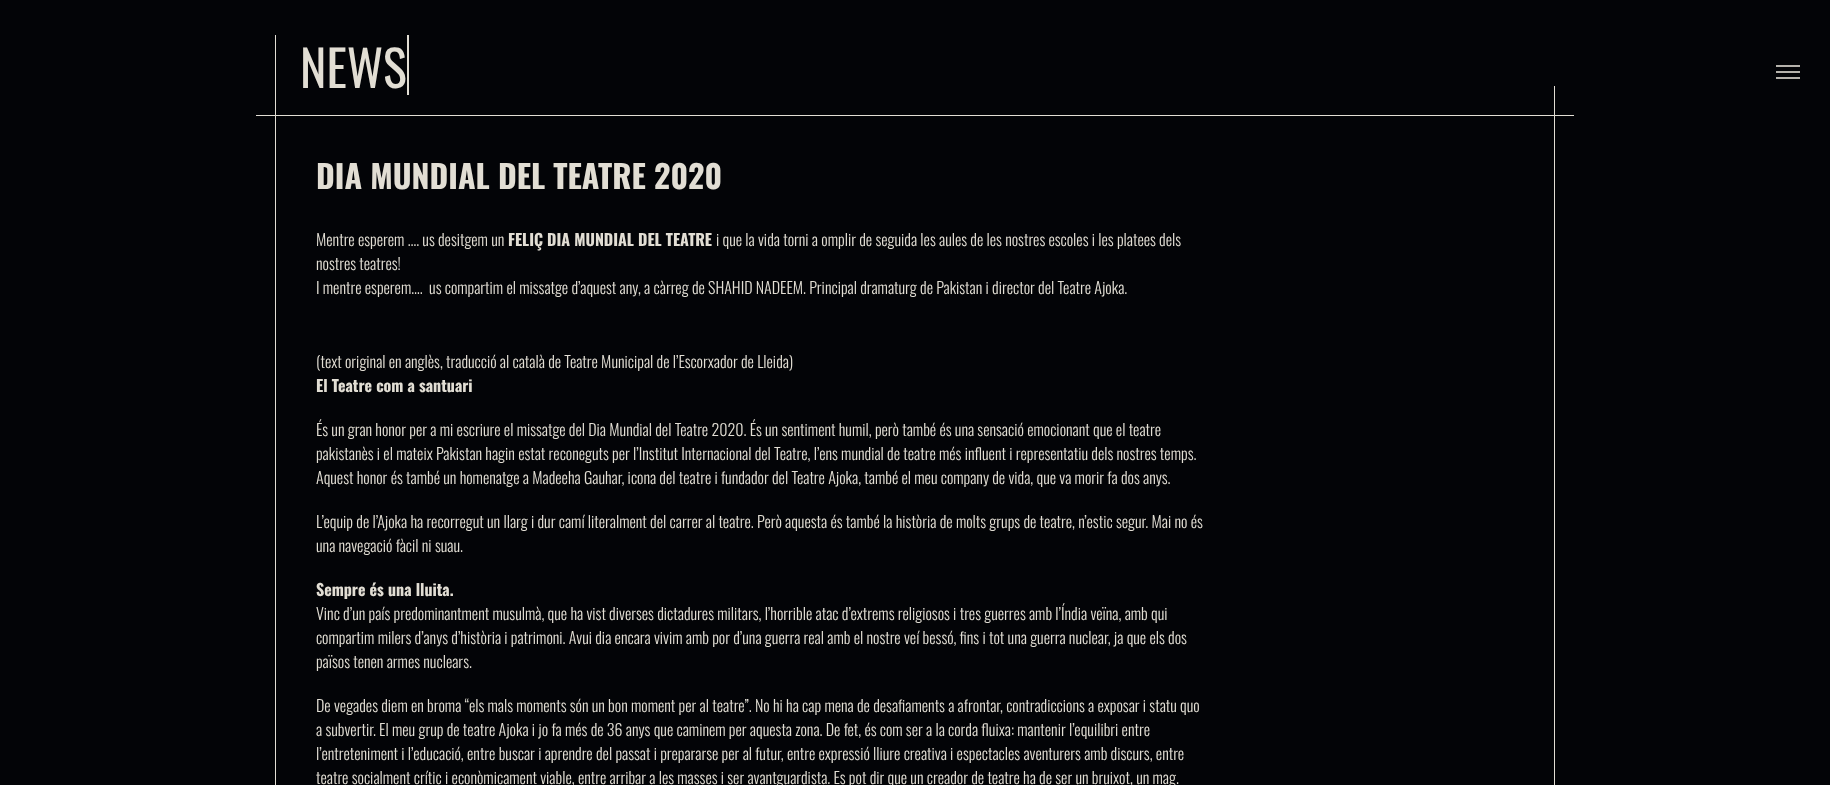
<svg xmlns="http://www.w3.org/2000/svg" width="1830" height="785" viewBox="0 0 1830 785">
  <rect width="100%" height="100%" fill="#030407"/>
  <path d="M275 35h1v51H275z" fill="#e2ded4"/>
  <path d="M407 35h2v60H407z" fill="#e2ded4"/>
  <path d="M275.5 115.5h1279v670H275.5z" fill="none" stroke="#e2ded4"/>
  <path d="M275 86h1v30H275z" fill="#e2ded4"/>
  <path d="M256 115h20v1H256z" fill="#e2ded4"/>
  <path d="M1554 115h20v1H1554z" fill="#e2ded4"/>
  <path d="M1554 86h1v30H1554z" fill="#e2ded4"/>
  <path d="M1776 71h24v2H1776z" fill="#b5b2ab"/>
  <path d="M1776 65h24v2H1776z" fill="#b5b2ab"/>
  <path d="M1776 77h24v2H1776z" fill="#b5b2ab"/>
  <text x="300" y="88" font-family="Oswald" font-size="50" fill="#e2ded4">NEWS</text>
  <text x="316" y="189" font-family="Oswald" font-size="32" font-weight="bold" fill="#e2ded4">DIA MUNDIAL DEL TEATRE 2020</text>
  <text x="316" y="246" font-family="Oswald" font-size="16" font-weight="300" fill="#e2ded4">Mentre esperem …. us desitgem un</text>
  <text x="508" y="246" font-family="Oswald" font-size="16" font-weight="bold" fill="#e2ded4">FELIÇ DIA MUNDIAL DEL TEATRE</text>
  <g font-family="Oswald" font-size="16" font-weight="300" fill="#e2ded4">
    <text x="716" y="246">i que la vida torni a omplir de seguida les aules de les nostres escoles i les platees dels</text>
    <text x="316" y="270">nostres teatres!</text>
    <text x="316" y="294" xml:space="preserve">I mentre esperem….  us compartim el missatge d’aquest any, a càrreg de SHAHID NADEEM. Principal dramaturg de Pakistan i director del Teatre Ajoka.</text>
    <text x="316" y="368">(text original en anglès, traducció al català de Teatre Municipal de l’Escorxador de Lleida)</text>
  </g>
  <text x="316" y="392" font-family="Oswald" font-size="16" font-weight="bold" fill="#e2ded4">El Teatre com a santuari</text>
  <g font-family="Oswald" font-size="16" font-weight="300" fill="#e2ded4">
    <text x="316" y="436">És un gran honor per a mi escriure el missatge del Dia Mundial del Teatre 2020. És un sentiment humil, però també és una sensació emocionant que el teatre</text>
    <text x="316" y="460">pakistanès i el mateix Pakistan hagin estat reconeguts per l’Institut Internacional del Teatre, l’ens mundial de teatre més influent i representatiu dels nostres temps.</text>
    <text x="316" y="484">Aquest honor és també un homenatge a Madeeha Gauhar, icona del teatre i fundador del Teatre Ajoka, també el meu company de vida, que va morir fa dos anys.</text>
    <text x="316" y="528">L’equip de l’Ajoka ha recorregut un llarg i dur camí literalment del carrer al teatre. Però aquesta és també la història de molts grups de teatre, n’estic segur. Mai no és</text>
    <text x="316" y="552">una navegació fàcil ni suau.</text>
  </g>
  <text x="316" y="596" font-family="Oswald" font-size="16" font-weight="bold" fill="#e2ded4">Sempre és una lluita.</text>
  <g font-family="Oswald" font-size="16" font-weight="300" fill="#e2ded4">
    <text x="316" y="620">Vinc d’un país predominantment musulmà, que ha vist diverses dictadures militars, l’horrible atac d’extrems religiosos i tres guerres amb l’Índia veïna, amb qui</text>
    <text x="316" y="644">compartim milers d’anys d’història i patrimoni. Avui dia encara vivim amb por d’una guerra real amb el nostre veí bessó, fins i tot una guerra nuclear, ja que els dos</text>
    <text x="316" y="668">països tenen armes nuclears.</text>
    <text x="316" y="712">De vegades diem en broma “els mals moments són un bon moment per al teatre”. No hi ha cap mena de desafiaments a afrontar, contradiccions a exposar i statu quo</text>
    <text x="316" y="736">a subvertir. El meu grup de teatre Ajoka i jo fa més de 36 anys que caminem per aquesta zona. De fet, és com ser a la corda fluixa: mantenir l’equilibri entre</text>
    <text x="316" y="760">l’entreteniment i l’educació, entre buscar i aprendre del passat i prepararse per al futur, entre expressió lliure creativa i espectacles aventurers amb discurs, entre</text>
    <text x="316" y="784">teatre socialment crític i econòmicament viable, entre arribar a les masses i ser avantguardista. Es pot dir que un creador de teatre ha de ser un bruixot, un mag.</text>
  </g>
</svg>
